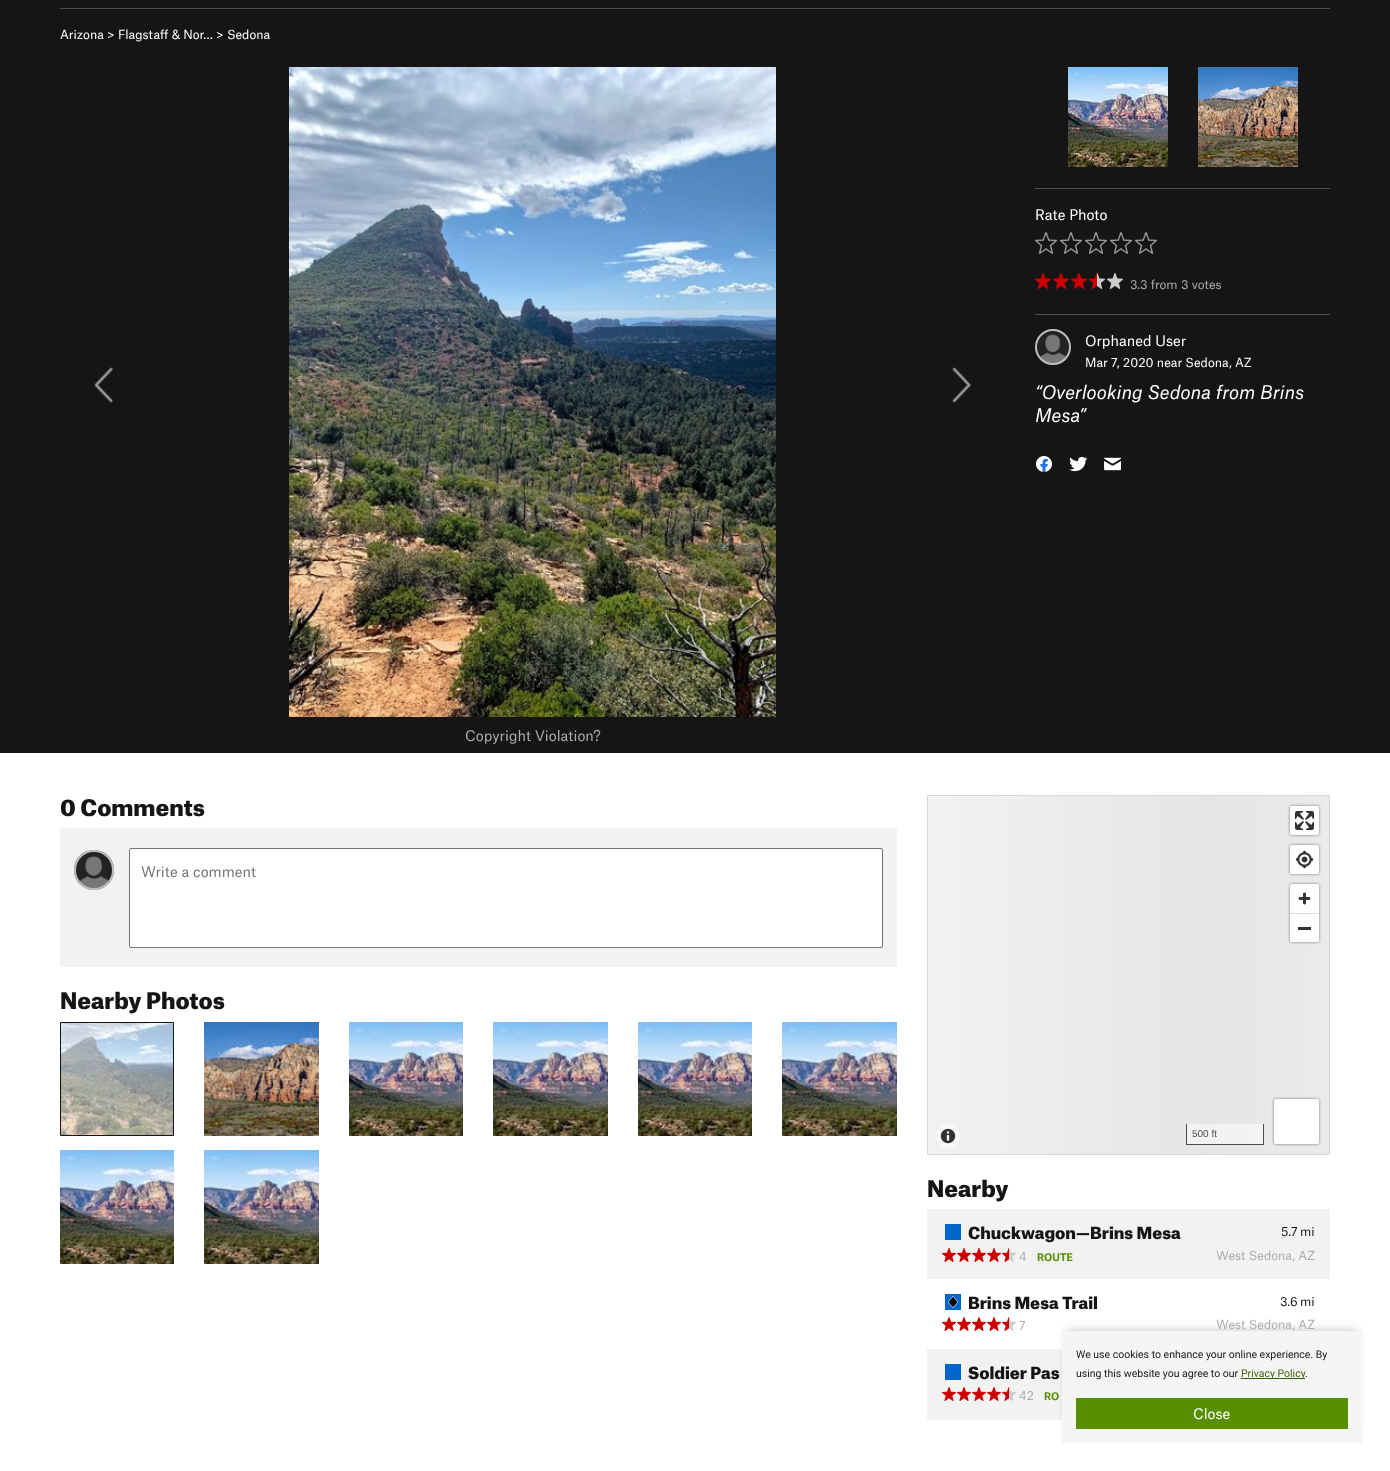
<svg xmlns="http://www.w3.org/2000/svg" width="1390" height="1471" viewBox="0 0 1390 1471">
  <defs>
    <linearGradient id="g1" gradientUnits="userSpaceOnUse" x1="928" y1="975" x2="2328" y2="975"><stop offset="0" stop-color="#f2f2f2"/><stop offset="0.2" stop-color="#e5e5e5"/><stop offset="0.4" stop-color="#f2f2f2"/><stop offset="1" stop-color="#f2f2f2"/></linearGradient>
    <linearGradient id="g2" gradientUnits="userSpaceOnUse" x1="928" y1="975" x2="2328" y2="975"><stop offset="0" stop-color="#f9f9f9"/><stop offset="0.2" stop-color="#f2f2f2"/><stop offset="0.4" stop-color="#f9f9f9"/><stop offset="1" stop-color="#f9f9f9"/></linearGradient>
  </defs>
  <rect width="100%" height="100%" fill="#fff"/>
  <path d="M0 0h1390v753H0z" fill="#151515"/>
  <path d="M60 8h1270v1H60z" fill="#4e4d49"/>
  <image x="1068" y="67" width="100" height="100" href="img/1.png"/>
  <image x="1111" y="107" width="11" height="20" href="img/2.png"/>
  <image x="1198" y="67" width="100" height="100" href="img/3.png"/>
  <image x="1243" y="107" width="11" height="20" href="img/4.png"/>
  <path d="M1035 188h295v1H1035z" fill="#4e4d49"/>
  <image x="1035" y="232" width="22" height="22" href="img/5.png"/>
  <image x="1060" y="232" width="22" height="22" href="img/5.png"/>
  <image x="1085" y="232" width="22" height="22" href="img/5.png"/>
  <image x="1110" y="232" width="22" height="22" href="img/5.png"/>
  <image x="1135" y="232" width="22" height="22" href="img/5.png"/>
  <image x="1035" y="273" width="16" height="16" href="img/6.png"/>
  <image x="1053" y="273" width="16" height="16" href="img/6.png"/>
  <image x="1071" y="273" width="16" height="16" href="img/6.png"/>
  <image x="1089" y="273" width="16" height="16" href="img/7.png"/>
  <image x="1107" y="273" width="16" height="16" href="img/8.png"/>
  <path d="M1035 314h295v1H1035z" fill="#4e4d49"/>
  <image x="1035" y="329" width="36" height="36" href="img/9.png"/>
  <circle cx="1053" cy="347" r="17" fill="none" stroke="#bdbdbd" stroke-width="2"/>
  <image x="1036" y="456" width="16" height="16" href="img/10.png"/>
  <image x="1069" y="456" width="19" height="16" href="img/11.png"/>
  <image x="1104" y="457" width="17" height="14" href="img/12.png"/>
  <image x="94" y="367" width="19" height="36" href="img/13.png"/>
  <image x="289" y="67" width="487" height="650" href="img/14.png"/>
  <image x="952" y="367" width="19" height="36" href="img/15.png"/>
  <path d="M60 828h837v139H60z" fill="#f2f2f2"/>
  <image x="74" y="850" width="40" height="40" href="img/16.png"/>
  <circle cx="94" cy="870" r="19" fill="none" stroke="#bdbdbd" stroke-width="2"/>
  <rect x="129.5" y="848.5" width="753" height="99" rx="1.5" fill="#fff" stroke="#767676"/>
  <path d="M60.5 1022.5h113v113H60.5z" fill="none" stroke="#151515"/>
  <image x="61" y="1023" width="112" height="112" href="img/17.png"/>
  <image x="204" y="1022" width="115" height="114" href="img/18.png"/>
  <image x="349" y="1022" width="114" height="114" href="img/19.png"/>
  <image x="493" y="1022" width="115" height="114" href="img/20.png"/>
  <image x="638" y="1022" width="114" height="114" href="img/21.png"/>
  <image x="782" y="1022" width="115" height="114" href="img/20.png"/>
  <image x="60" y="1150" width="114" height="114" href="img/21.png"/>
  <image x="204" y="1150" width="115" height="114" href="img/20.png"/>
  <path d="M928 796h401v358H928z" fill="url(#g1)"/>
  <path d="M1187 1124h76v20H1187z" fill="url(#g2)"/>
  <path d="M927.5 795.5h402v359H927.5z" fill="none" stroke="#d7d7d7"/>
  <circle cx="948" cy="1136" r="12" fill="#f8f8f8"/>
  <image x="940" y="1128" width="16" height="16" href="img/22.png"/>
  <rect x="1290" y="806" width="29" height="29" rx="2" fill="#00000080" filter="blur(1.5px)"/>
  <rect x="1290" y="806" width="29" height="29" rx="2" fill="#fff"/>
  <image x="1295" y="811" width="19" height="19" href="img/23.png"/>
  <rect x="1290" y="845" width="29" height="29" rx="2" fill="#00000080" filter="blur(1.5px)"/>
  <rect x="1290" y="845" width="29" height="29" rx="2" fill="#fff"/>
  <image x="1295" y="850" width="19" height="19" href="img/24.png"/>
  <rect x="1290" y="884" width="29" height="58" rx="2" fill="#00000080" filter="blur(1.5px)"/>
  <rect x="1290" y="884" width="29" height="58" rx="2" fill="#fff"/>
  <image x="1298" y="892" width="13" height="13" href="img/25.png"/>
  <path d="M1290 913h29v1H1290z" fill="#ddd"/>
  <path d="M1298 927h13v3H1298z" fill="#333"/>
  <path d="M1263 1124h1v21H1263z" fill="#4e4d49"/>
  <path d="M1186 1144h78v1H1186z" fill="#4e4d49"/>
  <path d="M1186 1124h1v21H1186z" fill="#4e4d49"/>
  <rect x="1274" y="1099" width="45" height="45" rx="2" fill="#00000080" filter="blur(1.5px)"/>
  <rect x="1274" y="1099" width="45" height="45" rx="2" fill="#fff"/>
  <path d="M927 1209h403v70H927z" fill="#f2f2f2"/>
  <path d="M945 1224h16v16H945z" fill="#06c"/>
  <image x="942" y="1248" width="14" height="14" href="img/26.png"/>
  <image x="957" y="1248" width="14" height="14" href="img/26.png"/>
  <image x="972" y="1248" width="14" height="14" href="img/26.png"/>
  <image x="987" y="1248" width="14" height="14" href="img/26.png"/>
  <image x="1002" y="1248" width="14" height="14" href="img/27.png"/>
  <image x="945" y="1294" width="16" height="16" href="img/28.png"/>
  <image x="942" y="1317" width="14" height="14" href="img/29.png"/>
  <image x="957" y="1317" width="14" height="14" href="img/29.png"/>
  <image x="972" y="1317" width="14" height="14" href="img/29.png"/>
  <image x="987" y="1317" width="14" height="14" href="img/29.png"/>
  <image x="1002" y="1317" width="14" height="14" href="img/30.png"/>
  <path d="M927 1349h135v71H927z" fill="#f2f2f2"/>
  <path d="M945 1364h16v16H945z" fill="#06c"/>
  <image x="942" y="1387" width="14" height="14" href="img/26.png"/>
  <image x="957" y="1387" width="14" height="14" href="img/26.png"/>
  <image x="972" y="1387" width="14" height="14" href="img/26.png"/>
  <image x="987" y="1387" width="14" height="14" href="img/26.png"/>
  <image x="1002" y="1387" width="14" height="14" href="img/27.png"/>
  <path d="M1067 1331h290v102H1067z" fill="#00000040" filter="blur(5px)"/>
  <path d="M1062 1331h300v112H1062z" fill="#f5f5f5"/>
  <path d="M1241 1378h64v1H1241z" fill="#395c00"/>
  <path d="M1076 1398h272v31H1076z" fill="#588f00"/>
  <text x="60" y="39" font-family="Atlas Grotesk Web" font-size="12" fill="#fff">Arizona &gt; Flagstaff &amp; Nor… &gt; Sedona</text>
  <text x="1035" y="220" font-family="Atlas Grotesk Web" font-size="14" fill="#fff">Rate Photo</text>
  <text x="1130" y="289" font-family="Atlas Grotesk Web" font-size="12" fill="#acacac">3.3 from 3 votes</text>
  <text x="1085" y="346" font-family="Atlas Grotesk Web" font-size="14" fill="#fff">Orphaned User</text>
  <text x="1085" y="367" font-family="Atlas Grotesk Web" font-size="12" fill="#fff">Mar 7, 2020 near Sedona, AZ</text>
  <g font-family="Atlas Grotesk Web" font-size="18" font-style="italic" fill="#fff">
    <text x="1035" y="399">“Overlooking Sedona from Brins</text>
    <text x="1035" y="422">Mesa</text>
    <text x="1079" y="422">”</text>
  </g>
  <text x="465" y="741" font-family="Atlas Grotesk Web" font-size="14" fill="#acacac">Copyright Violation?</text>
  <text x="60" y="816" font-family="Atlas Grotesk Web" font-size="22" font-weight="900" fill="#151515">0 Comments</text>
  <text x="141" y="877" font-family="Atlas Grotesk Web" font-size="14" fill="#757575">Write a comment</text>
  <text x="60" y="1009" font-family="Atlas Grotesk Web" font-size="22" font-weight="900" fill="#151515">Nearby Photos</text>
  <text x="1192" y="1137" font-family="Liberation Sans" font-size="10" fill="#4e4d49">500 ft</text>
  <text x="927" y="1197" font-family="Atlas Grotesk Web" font-size="22" font-weight="900" fill="#151515">Nearby</text>
  <text x="968" y="1239" font-family="Atlas Grotesk Web" font-size="16" font-weight="900" fill="#151515">Chuckwagon—Brins Mesa</text>
  <g font-family="Atlas Grotesk Web" font-size="12" fill="#151515">
    <text x="1281" y="1236">5.7</text>
    <text x="1300" y="1236">mi</text>
  </g>
  <text x="1019" y="1261" font-family="Atlas Grotesk Web" font-size="12" fill="#acacac">4</text>
  <text x="1037" y="1261" font-family="Atlas Grotesk Web" font-size="10" font-weight="bold" fill="#588f00">ROUTE</text>
  <text x="1216" y="1260" font-family="Atlas Grotesk Web" font-size="12" fill="#acacac">West Sedona, AZ</text>
  <text x="968" y="1309" font-family="Atlas Grotesk Web" font-size="16" font-weight="900" fill="#151515">Brins Mesa Trail</text>
  <g font-family="Atlas Grotesk Web" font-size="12" fill="#151515">
    <text x="1280" y="1306">3.6</text>
    <text x="1300" y="1306">mi</text>
  </g>
  <g font-family="Atlas Grotesk Web" font-size="12" fill="#acacac">
    <text x="1019" y="1330">7</text>
    <text x="1216" y="1329">West Sedona, AZ</text>
  </g>
  <text x="968" y="1379" font-family="Atlas Grotesk Web" font-size="16" font-weight="900" fill="#151515">Soldier Pas</text>
  <text x="1019" y="1400" font-family="Atlas Grotesk Web" font-size="12" fill="#acacac">42</text>
  <text x="1044" y="1400" font-family="Atlas Grotesk Web" font-size="10" font-weight="bold" fill="#588f00">RO</text>
  <g font-family="Roboto" font-size="10.5" fill="#151515">
    <text x="1076" y="1358">We use cookies to enhance your online experience. By</text>
    <text x="1076" y="1377">using this website you agree to our</text>
  </g>
  <text x="1241" y="1377" font-family="Roboto" font-size="10.5" fill="#395c00">Privacy Policy</text>
  <text x="1305" y="1377" font-family="Roboto" font-size="10.5" fill="#151515">.</text>
  <text x="1193" y="1419" font-family="Atlas Grotesk Web" font-size="14" fill="#fff">Close</text>
</svg>
